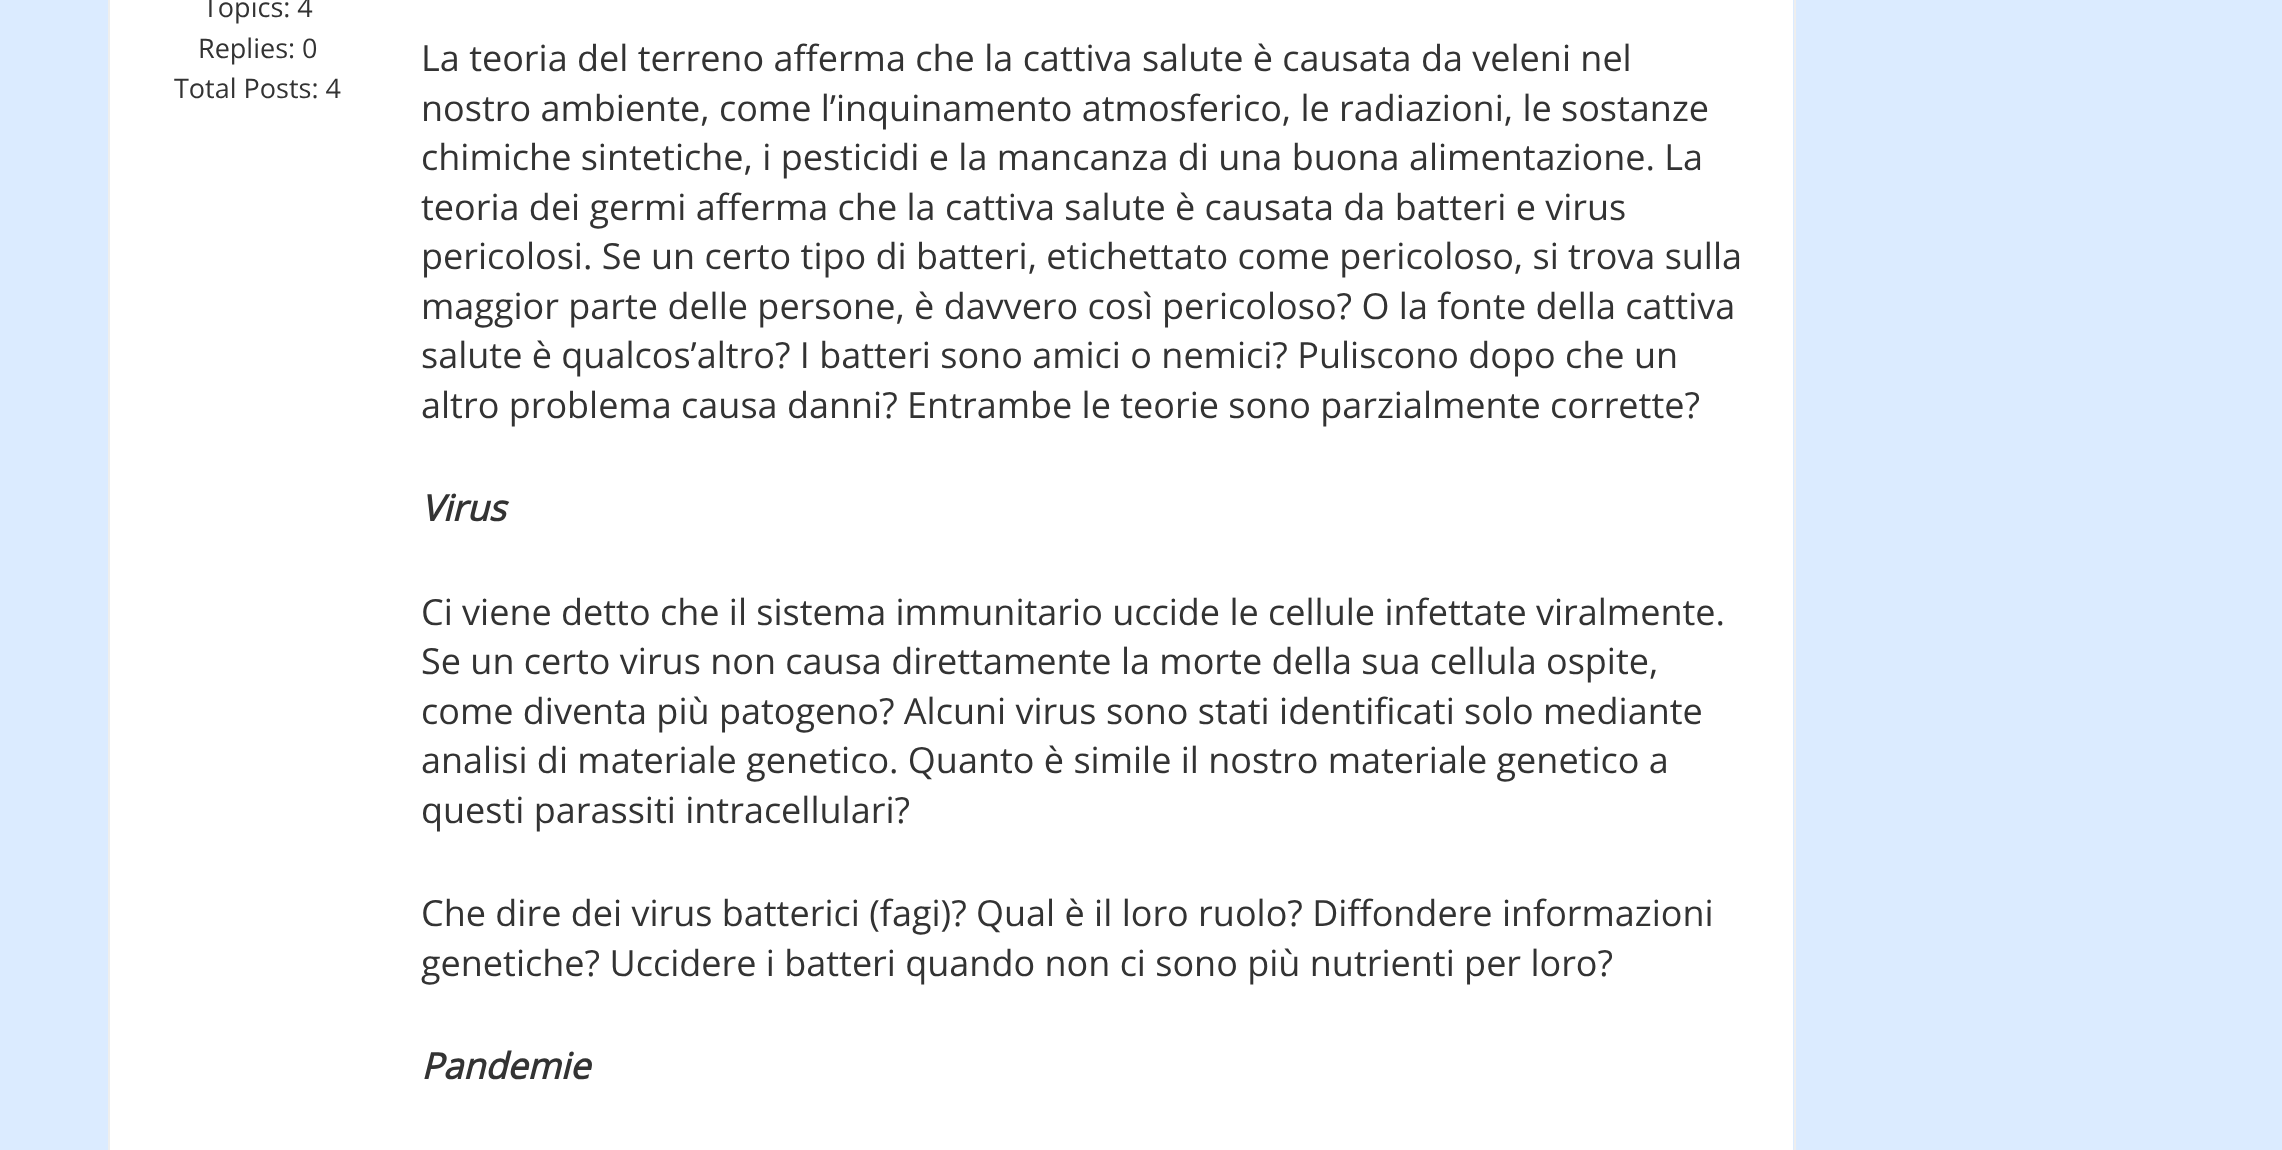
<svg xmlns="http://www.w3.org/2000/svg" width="2282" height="1150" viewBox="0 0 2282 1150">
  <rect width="100%" height="100%" fill="#dbebff"/>
  <path d="M109 -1h1686v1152H109z" fill="none" stroke="#eee" stroke-width="2"/>
  <path d="M110 0h1683v1150H110z" fill="#fff"/>
  <g font-family="Open Sans" font-size="27" fill="#333">
    <text x="203" y="17">Topics: 4</text>
    <text x="198" y="58">Replies: 0</text>
    <text x="174" y="98">Total Posts: 4</text>
  </g>
  <g font-family="Open Sans" font-size="36" fill="#333">
    <text x="421" y="71">La teoria del terreno afferma che la cattiva salute è causata da veleni nel</text>
    <text x="421" y="121">nostro ambiente, come l’inquinamento atmosferico, le radiazioni, le sostanze</text>
    <text x="421" y="170">chimiche sintetiche, i pesticidi e la mancanza di una buona alimentazione. La</text>
    <text x="421" y="220">teoria dei germi afferma che la cattiva salute è causata da batteri e virus</text>
    <text x="421" y="269">pericolosi. Se un certo tipo di batteri, etichettato come pericoloso, si trova sulla</text>
    <text x="421" y="319">maggior parte delle persone, è davvero così pericoloso? O la fonte della cattiva</text>
    <text x="421" y="368">salute è qualcos’altro? I batteri sono amici o nemici? Puliscono dopo che un</text>
    <text x="421" y="418">altro problema causa danni? Entrambe le teorie sono parzialmente corrette?</text>
  </g>
  <text x="421" y="521" font-family="Open Sans" font-size="36" font-weight="bold" font-style="italic" fill="#333">Virus</text>
  <g font-family="Open Sans" font-size="36" fill="#333">
    <text x="421" y="625">Ci viene detto che il sistema immunitario uccide le cellule infettate viralmente.</text>
    <text x="421" y="674">Se un certo virus non causa direttamente la morte della sua cellula ospite,</text>
    <text x="421" y="724">come diventa più patogeno? Alcuni virus sono stati identificati solo mediante</text>
    <text x="421" y="773">analisi di materiale genetico. Quanto è simile il nostro materiale genetico a</text>
    <text x="421" y="823">questi parassiti intracellulari?</text>
    <text x="421" y="926">Che dire dei virus batterici (fagi)? Qual è il loro ruolo? Diffondere informazioni</text>
    <text x="421" y="976">genetiche? Uccidere i batteri quando non ci sono più nutrienti per loro?</text>
  </g>
  <text x="421" y="1079" font-family="Open Sans" font-size="36" font-weight="bold" font-style="italic" fill="#333">Pandemie</text>
</svg>
